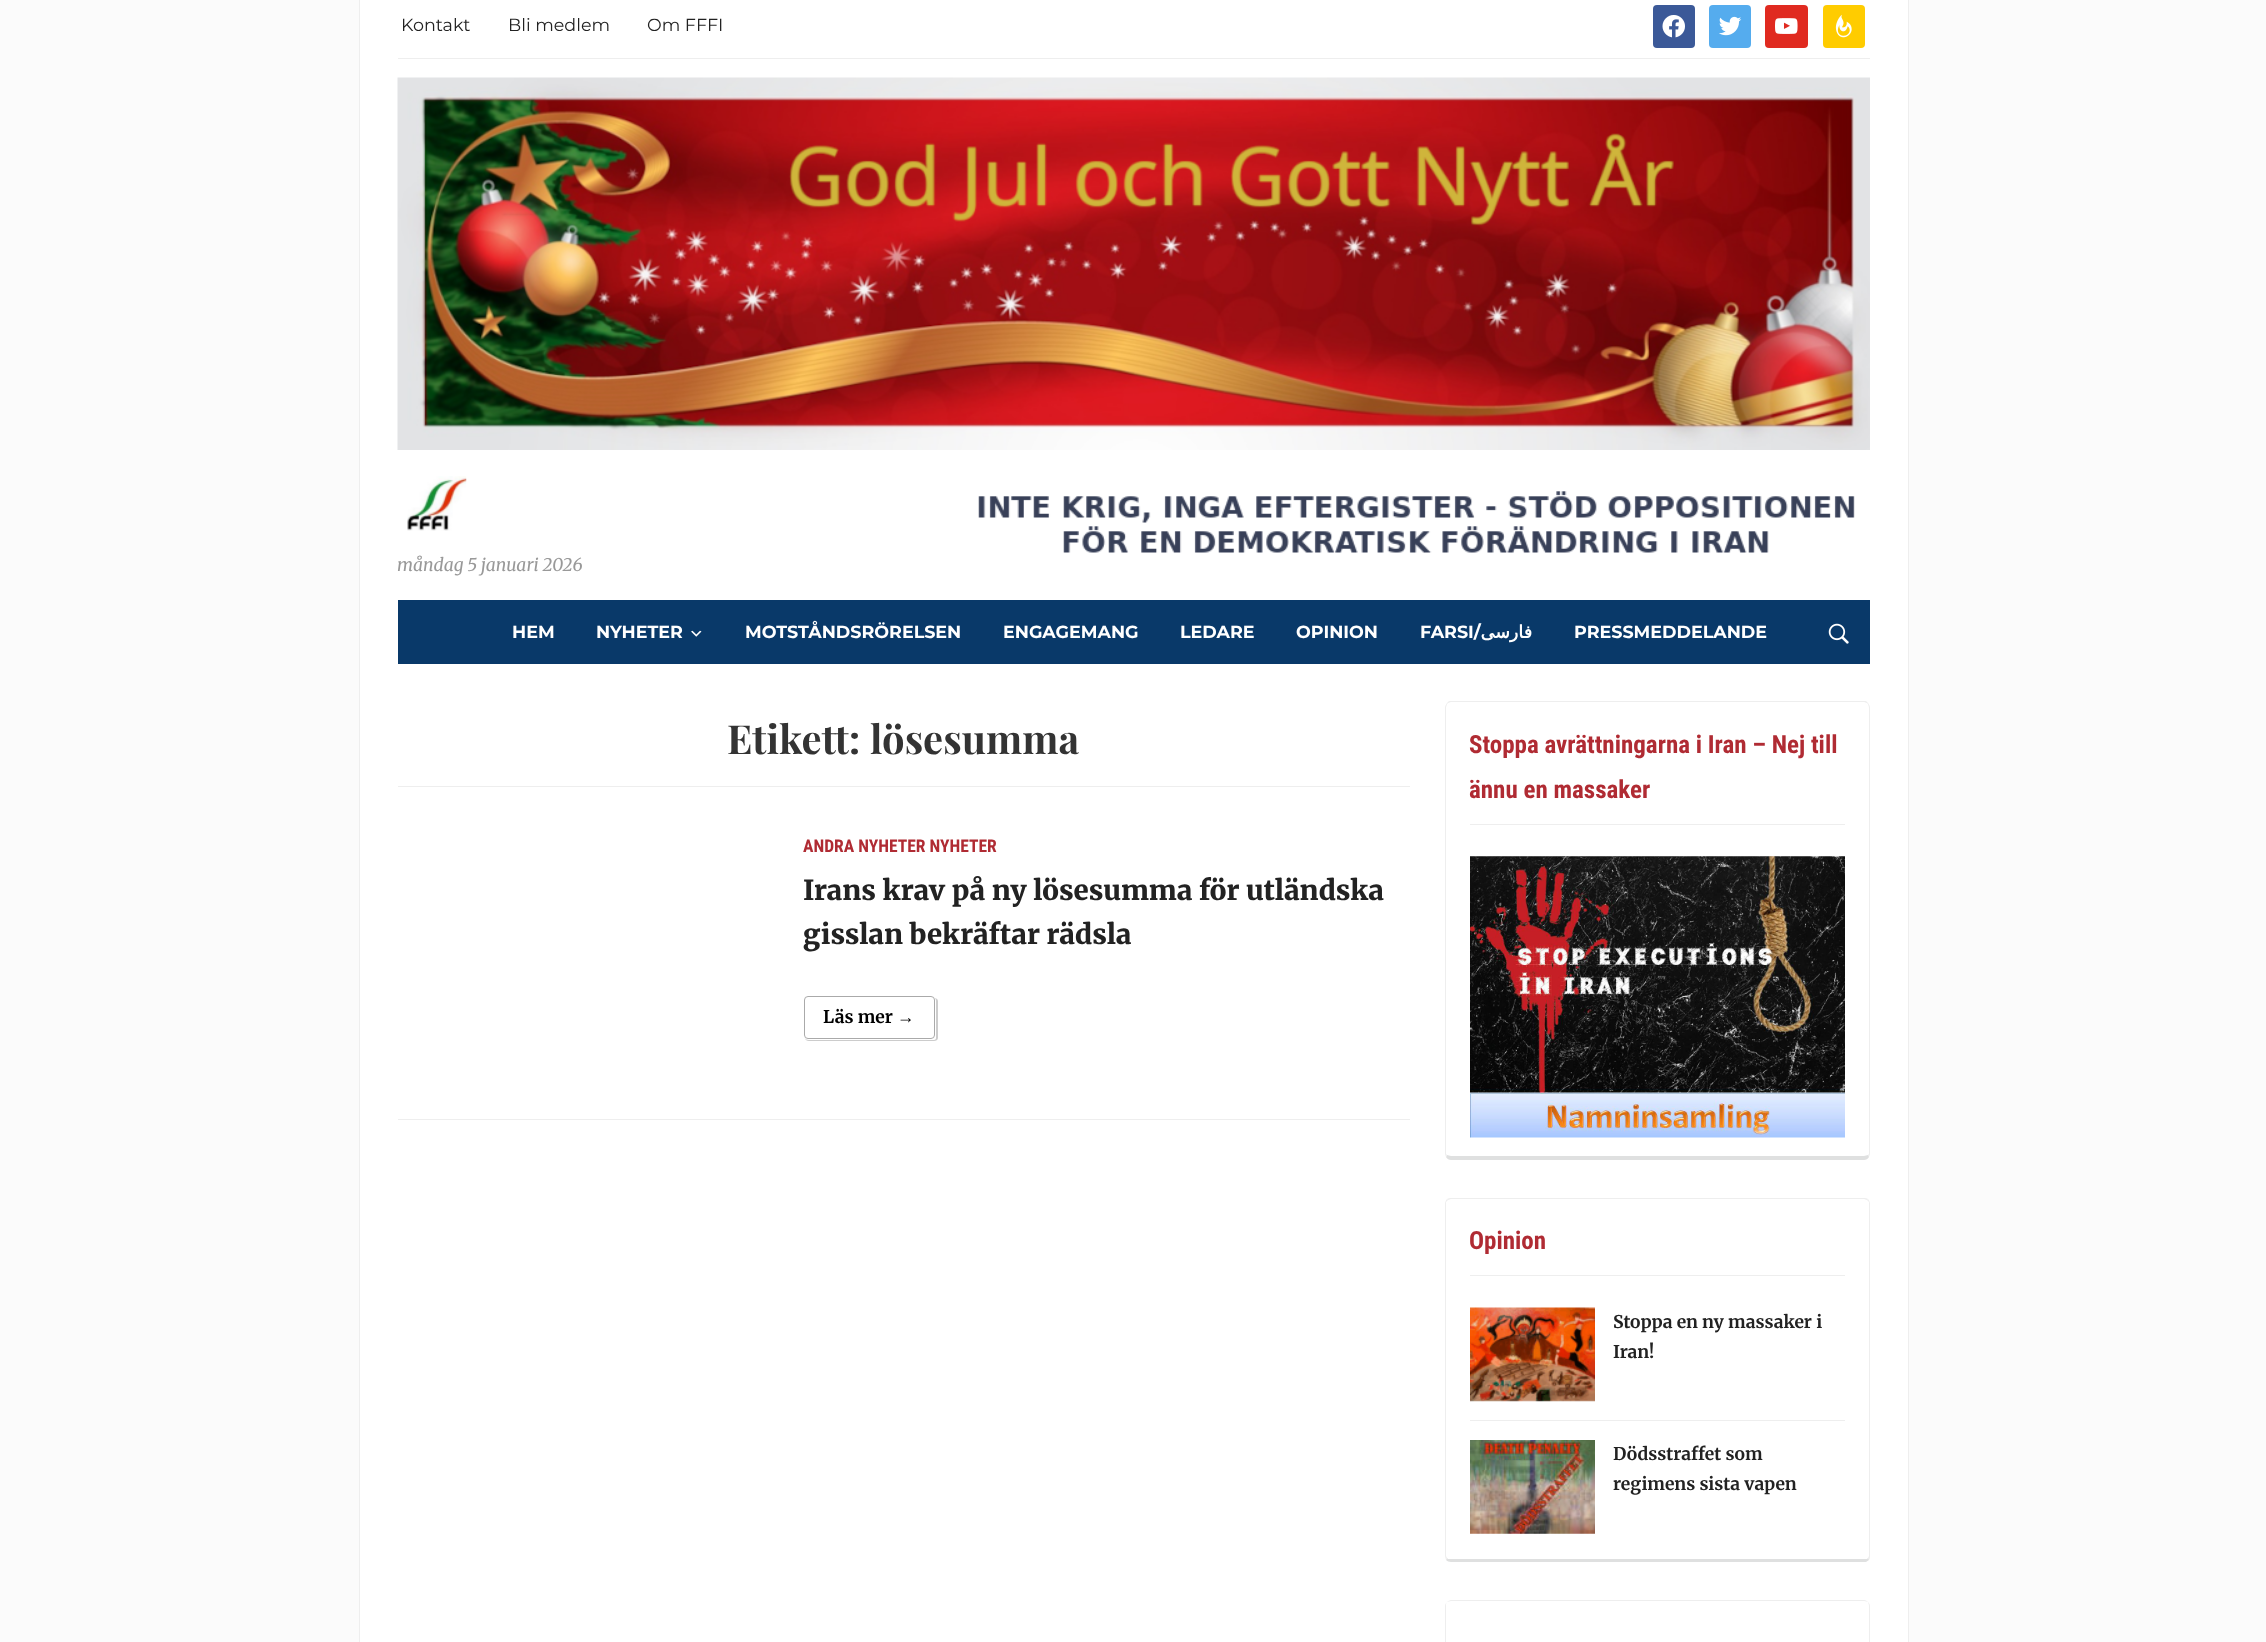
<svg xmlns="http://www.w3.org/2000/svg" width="2266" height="1642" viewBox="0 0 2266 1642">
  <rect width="100%" height="100%" fill="#fbfbfb"/>
  <path d="M360 0h1548v1642H360z" fill="#fff"/>
  <path d="M1908 0h1v1642H1908z" fill="#eee"/>
  <path d="M359 0h1v1642H359z" fill="#eee"/>
  <path d="M398 58h1472v1H398z" fill="#eee"/>
  <rect x="1653" y="5" width="42" height="43" rx="4" fill="#3b5998"/>
  <image x="1662" y="15" width="23" height="23" href="img/1.png"/>
  <rect x="1709" y="5" width="42" height="43" rx="4" fill="#55acee"/>
  <image x="1719" y="16" width="23" height="20" href="img/2.png"/>
  <rect x="1765" y="5" width="43" height="43" rx="4" fill="#e02a20"/>
  <image x="1775" y="18" width="23" height="16" href="img/3.png"/>
  <rect x="1823" y="5" width="42" height="43" rx="4" fill="#fc0"/>
  <image x="1835" y="14" width="17" height="24" href="img/4.png"/>
  <image x="397" y="77" width="1473" height="373" href="img/5.png"/>
  <image x="978" y="491" width="877" height="62" href="img/6.png"/>
  <image x="407" y="476" width="60" height="55" href="img/7.png"/>
  <path d="M398 600h1472v64H398z" fill="#093969"/>
  <image x="691" y="630" width="11" height="7" href="img/8.png"/>
  <image x="1828" y="623" width="21" height="21" href="img/9.png"/>
  <path d="M398 786h1012v1H398z" fill="#eee"/>
  <path d="M398 1119h1012v1H398z" fill="#eee"/>
  <rect x="804.5" y="996.5" width="130" height="42" rx="3.5" fill="none" stroke="#aaa"/>
  <path d="M1451 702C1450 702 1448 703 1447 704V703L1449 701H1866L1868 703V704C1867 703 1865 702 1864 702Z" fill="#eee"/>
  <path d="M1870 1154V708C1870 706 1869 704 1868 703V704C1868 705 1869 706 1869 708V1154L1868 1155L1869 1157Z" fill="#eee"/>
  <path d="M1451 1160H1864C1866 1160 1868 1159 1869 1157L1868 1155L1864 1156H1451L1447 1155L1446 1157C1447 1159 1449 1160 1451 1160Z" fill="#dfe0e0"/>
  <path d="M1445 708V1154L1446 1157L1447 1155L1446 1154V708C1446 706 1447 705 1447 704V703C1446 704 1445 706 1445 708Z" fill="#eee"/>
  <path d="M1470 824h375v1H1470z" fill="#eee"/>
  <image x="1470" y="856" width="375" height="282" href="img/10.png"/>
  <path d="M1451 1198C1450 1198 1448 1198 1447 1199L1448 1200L1451 1199H1864L1867 1200L1868 1199C1867 1198 1865 1198 1864 1198Z" fill="#eee"/>
  <path d="M1868 1199C1869 1200 1870 1202 1870 1204V1556C1870 1557 1870 1559 1869 1560L1868 1558L1869 1556V1202L1867 1200Z" fill="#eee"/>
  <path d="M1869 1560L1866 1562H1451C1449 1562 1447 1561 1446 1560L1447 1558C1447 1559 1449 1559 1451 1559H1864C1866 1559 1868 1559 1868 1558Z" fill="#dfe0e0"/>
  <path d="M1445 1204V1556L1446 1560L1447 1558L1446 1556V1202L1448 1200L1447 1199C1446 1200 1445 1202 1445 1204Z" fill="#eee"/>
  <path d="M1470 1275h375v1H1470z" fill="#eee"/>
  <path d="M1470 1420h375v1H1470z" fill="#eee"/>
  <image x="1470" y="1307" width="125" height="95" href="img/11.png"/>
  <image x="1470" y="1440" width="125" height="94" href="img/12.png"/>
  <path d="M1451 1600C1450 1600 1448 1601 1447 1602C1448 1602 1450 1601 1451 1601H1864C1866 1601 1867 1602 1868 1602C1867 1601 1866 1600 1864 1600Z" fill="#eee"/>
  <path d="M1870 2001V1606C1870 1604 1869 1603 1868 1602C1868 1603 1869 1604 1869 1606V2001L1868 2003L1869 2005Z" fill="#eee"/>
  <path d="M1445 1606V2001L1446 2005L1447 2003L1446 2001V1606C1446 1604 1446 1603 1447 1602C1446 1603 1445 1604 1445 1606Z" fill="#eee"/>
  <g font-family="Montserrat" font-size="17.5" fill="#222">
    <text x="401" y="31">Kontakt</text>
    <text x="508" y="31">Bli medlem</text>
    <text x="647" y="31">Om FFFI</text>
  </g>
  <text x="397" y="571" font-family="Merriweather" font-size="17.5" font-style="italic" fill="#999">måndag 5 januari 2026</text>
  <g font-family="Montserrat" font-size="17.5" font-weight="bold" fill="#fff">
    <text x="512" y="638">HEM</text>
    <text x="596" y="638">NYHETER</text>
    <text x="745" y="638">MOTSTÅNDSRÖRELSEN</text>
    <text x="1003" y="638">ENGAGEMANG</text>
    <text x="1180" y="638">LEDARE</text>
    <text x="1296" y="638">OPINION</text>
    <text x="1420" y="638">FARSI/</text>
  </g>
  <text x="1532" y="638" font-family="DejaVu Sans" font-size="17.5" font-weight="bold" direction="rtl" fill="#fff">فارسی</text>
  <text x="1574" y="638" font-family="Montserrat" font-size="17.5" font-weight="bold" fill="#fff">PRESSMEDDELANDE</text>
  <g font-family="Playfair Display" font-size="40" font-weight="bold" fill="#333">
    <text x="727" y="754">Etikett:</text>
    <text x="870" y="754">lösesumma</text>
  </g>
  <text x="803" y="852" font-family="Roboto Condensed" font-size="17.5" font-weight="bold" fill="#b02b33">ANDRA NYHETER NYHETER</text>
  <g font-family="Merriweather" font-size="27.5" font-weight="900" fill="#222">
    <text x="803" y="900">Irans krav på ny lösesumma för utländska</text>
    <text x="803" y="944">gisslan bekräftar rädsla</text>
  </g>
  <text x="823" y="1023" font-family="Merriweather" font-size="17.5" font-weight="bold" fill="#000">Läs mer</text>
  <text x="897" y="1023" font-family="Liberation Serif" font-size="17.5" font-weight="bold" fill="#000">→</text>
  <path d="M809 998H934C936 998 938 999 938 1001V1038C938 1040 936 1041 934 1041H809C807 1041 805 1040 805 1038V1001C805 999 807 998 809 998ZM809 998H934C935 998 936 999 936 1001V1038C936 1039 935 1040 934 1040H809C807 1040 805 1039 805 1038V1001C805 999 807 998 809 998Z" fill="#ccc" fill-rule="evenodd"/>
  <g font-family="Roboto Condensed" font-size="25" font-weight="bold" fill="#b02b33">
    <text x="1469" y="753">Stoppa avrättningarna i Iran – Nej till</text>
    <text x="1469" y="798">ännu en massaker</text>
    <text x="1469" y="1249">Opinion</text>
  </g>
  <g font-family="Merriweather" font-size="17.5" font-weight="bold" fill="#222">
    <text x="1613" y="1328">Stoppa en ny massaker i</text>
    <text x="1613" y="1358">Iran!</text>
    <text x="1613" y="1460">Dödsstraffet som</text>
    <text x="1613" y="1490">regimens sista vapen</text>
  </g>
</svg>
